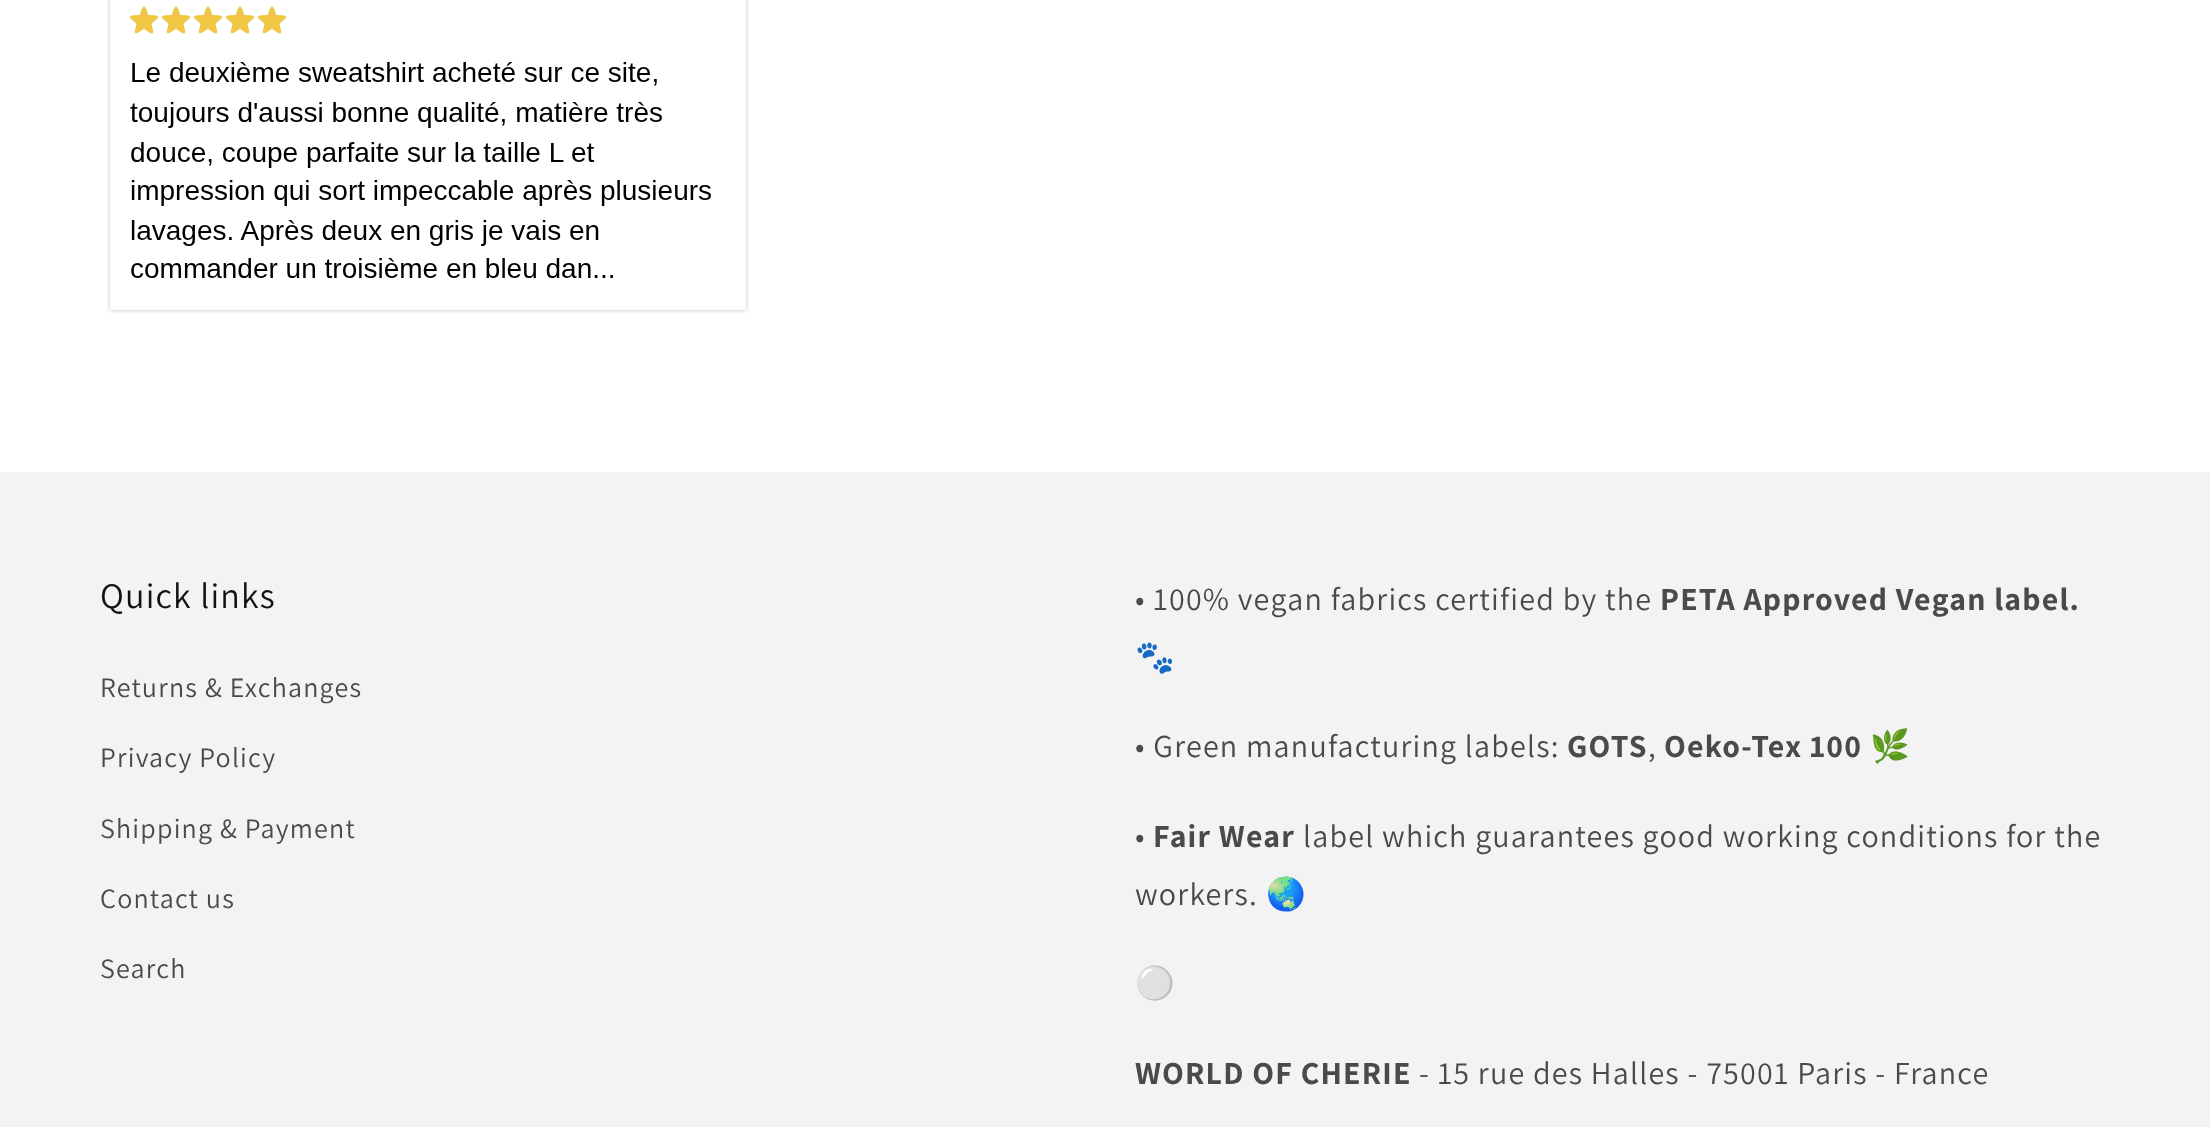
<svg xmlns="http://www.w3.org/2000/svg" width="2210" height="1127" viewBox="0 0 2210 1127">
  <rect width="100%" height="100%" fill="#fff"/>
  <image x="107" y="0" width="642" height="313" href="img/1.png"/>
  <path d="M0 472h2210v655H0z" fill="#f3f3f3"/>
  <text x="100" y="608" font-family="Assistant" font-size="36" letter-spacing="1.2" fill="#121212">Quick links</text>
  <g font-family="Assistant" font-size="28" letter-spacing="1.2" fill="#4a4a4a">
    <text x="100" y="697">Returns &amp; Exchanges</text>
    <text x="100" y="767">Privacy Policy</text>
    <text x="100" y="838">Shipping &amp; Payment</text>
    <text x="100" y="908">Contact us</text>
    <text x="100" y="978">Search</text>
  </g>
  <text x="1135" y="610" font-family="Assistant" font-size="32" letter-spacing="1.2" fill="#4a4a4a">• 100% vegan fabrics certified by the</text>
  <text x="1660" y="610" font-family="Assistant" font-size="32" font-weight="bold" letter-spacing="1.2" fill="#4a4a4a">PETA Approved Vegan label.</text>
  <text x="1135" y="668" font-family="Noto Color Emoji" font-size="32" letter-spacing="1.2" fill="#4a4a4a">🐾</text>
  <text x="1135" y="757" font-family="Assistant" font-size="32" letter-spacing="1.2" fill="#4a4a4a">• Green manufacturing labels:</text>
  <text x="1567" y="757" font-family="Assistant" font-size="32" font-weight="bold" letter-spacing="1.2" fill="#4a4a4a">GOTS</text>
  <text x="1648" y="757" font-family="Assistant" font-size="32" letter-spacing="1.2" fill="#4a4a4a">,</text>
  <text x="1664" y="757" font-family="Assistant" font-size="32" font-weight="bold" letter-spacing="1.2" fill="#4a4a4a">Oeko-Tex 100</text>
  <text x="1870" y="757" font-family="Noto Color Emoji" font-size="32" letter-spacing="1.2" fill="#4a4a4a">🌿</text>
  <text x="1135" y="847" font-family="Assistant" font-size="32" letter-spacing="1.2" fill="#4a4a4a">•</text>
  <text x="1153" y="847" font-family="Assistant" font-size="32" font-weight="bold" letter-spacing="1.2" fill="#4a4a4a">Fair Wear</text>
  <g font-family="Assistant" font-size="32" letter-spacing="1.2" fill="#4a4a4a">
    <text x="1303" y="847">label which guarantees good working conditions for the</text>
    <text x="1135" y="905">workers.</text>
  </g>
  <g font-family="Noto Color Emoji" font-size="32" letter-spacing="1.2" fill="#4a4a4a">
    <text x="1266" y="905">🌏</text>
    <text x="1135" y="994">⚪</text>
  </g>
  <text x="1135" y="1084" font-family="Assistant" font-size="32" font-weight="bold" letter-spacing="1.2" fill="#4a4a4a">WORLD OF CHERIE</text>
  <text x="1419" y="1084" font-family="Assistant" font-size="32" letter-spacing="1.2" fill="#4a4a4a">- 15 rue des Halles - 75001 Paris - France</text>
</svg>
